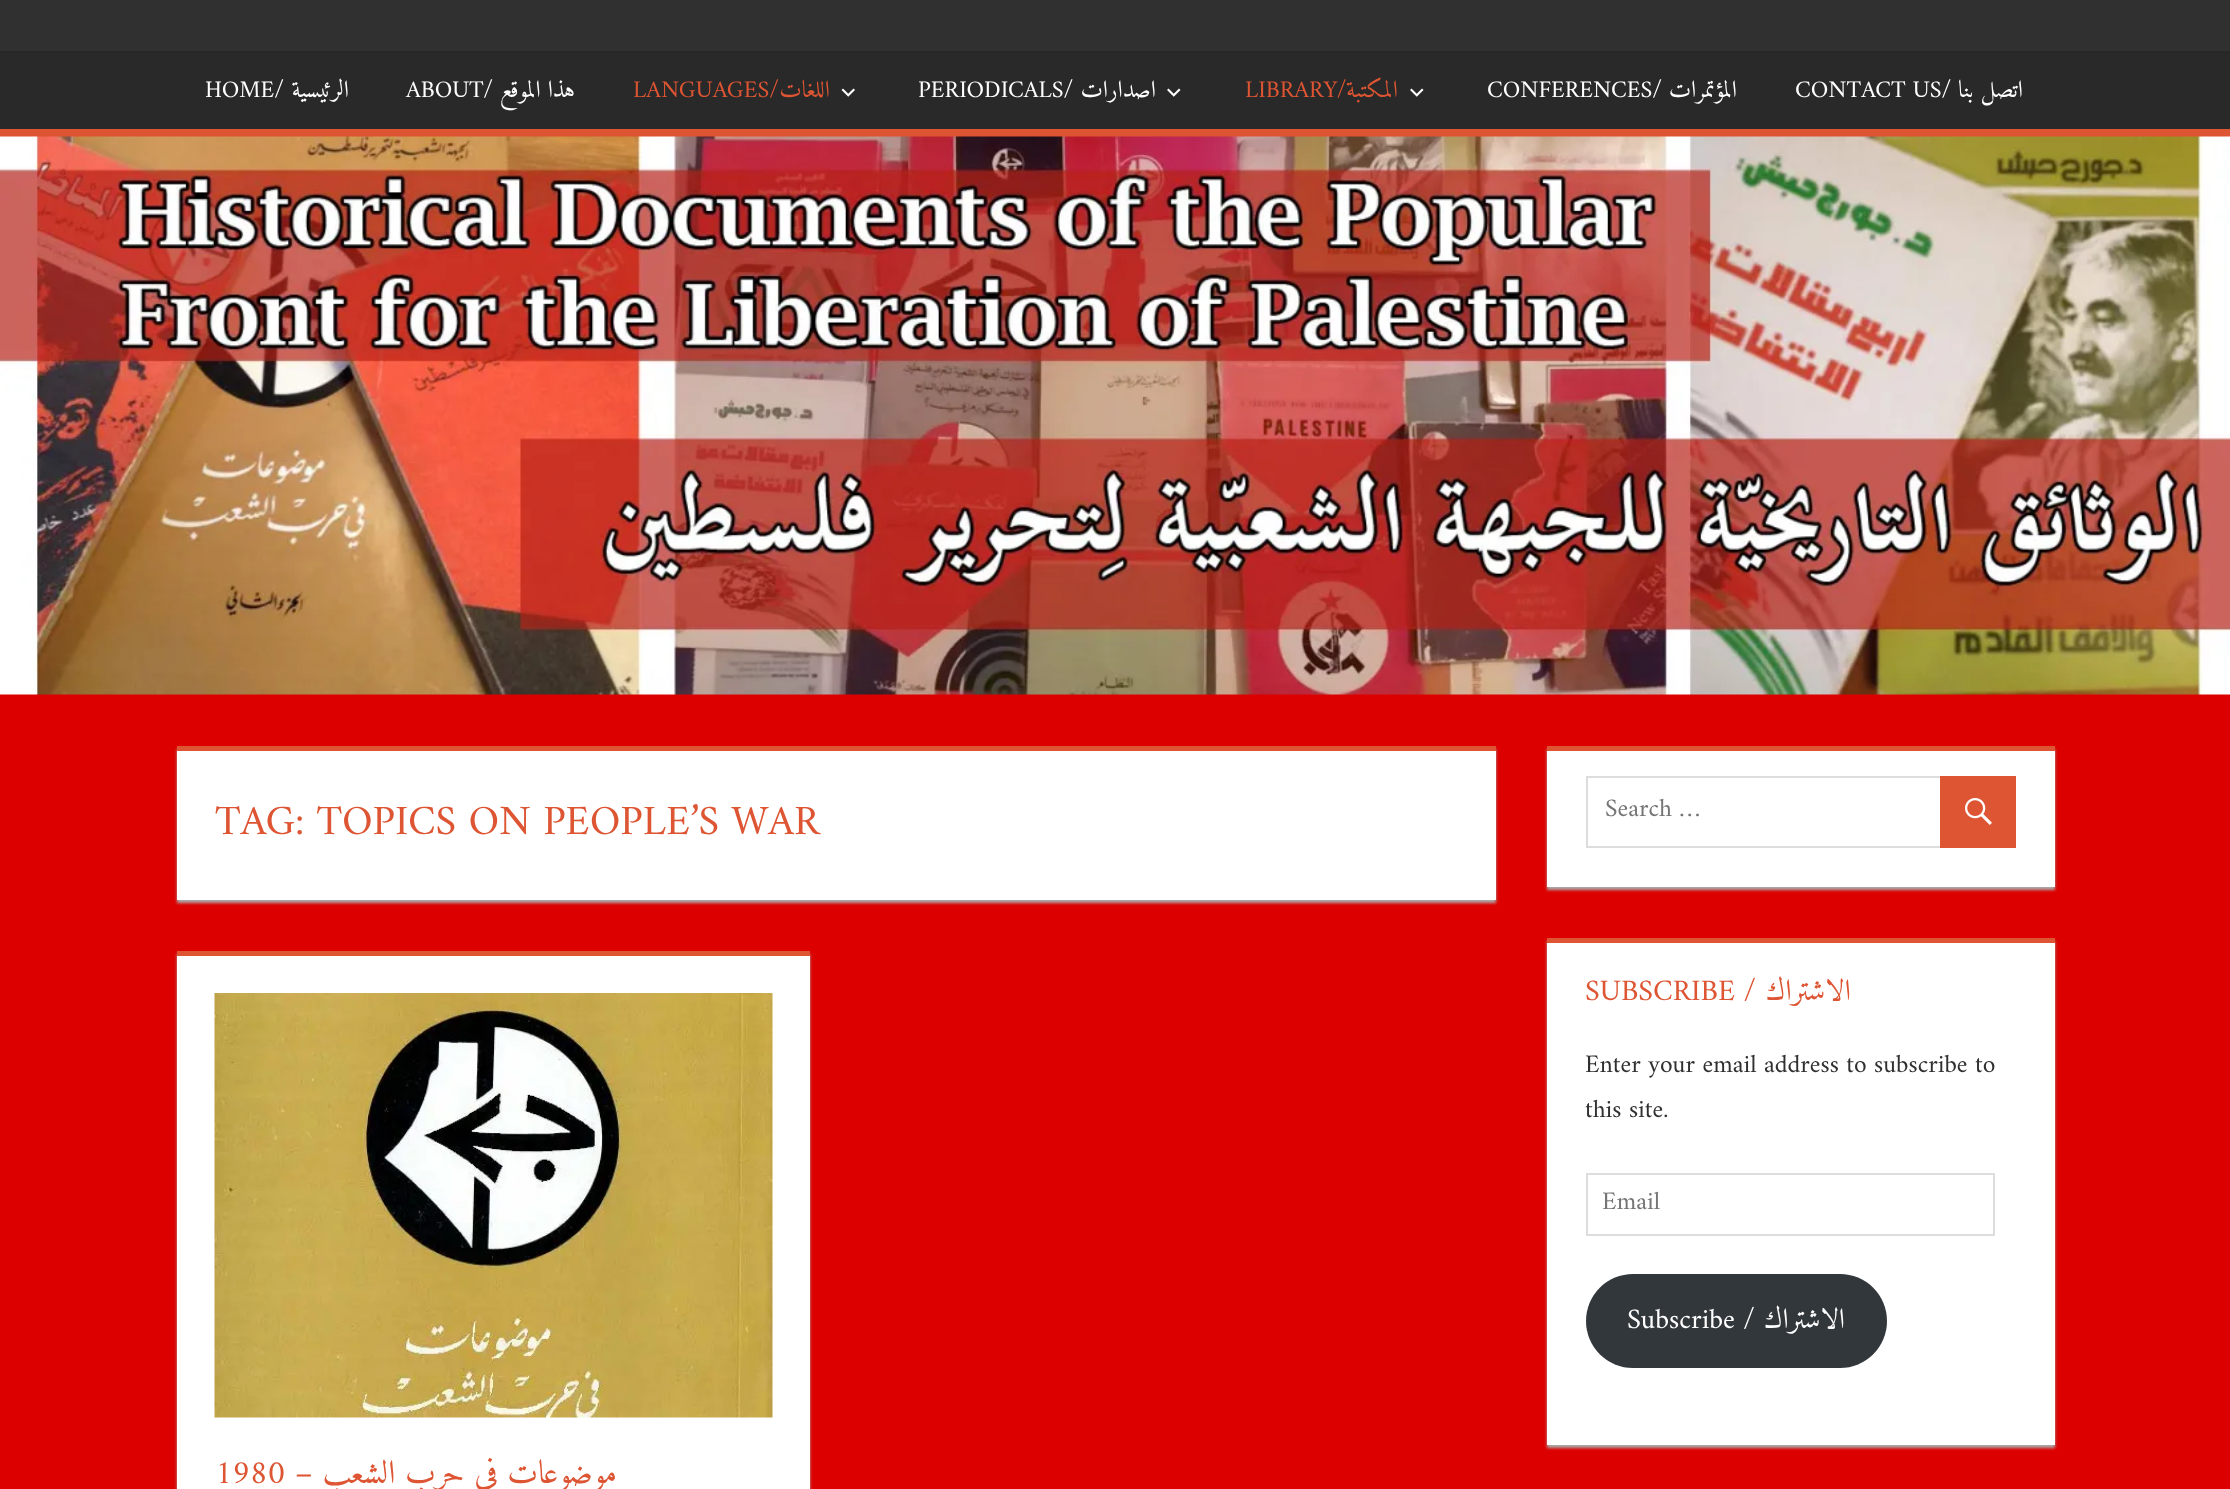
<svg xmlns="http://www.w3.org/2000/svg" width="2230" height="1489" viewBox="0 0 2230 1489">
  <rect width="100%" height="100%" fill="#d00"/>
  <path d="M0 0h2230v51H0z" fill="#303030"/>
  <path d="M0 53h2230v76H0z" fill="#292929"/>
  <path d="M0 51h2230v2H0z" fill="#272727"/>
  <path d="M0 129h2230v8H0z" fill="#d53"/>
  <image x="841" y="88" width="14" height="9" href="img/1.png"/>
  <image x="1167" y="88" width="14" height="9" href="img/2.png"/>
  <image x="1410" y="88" width="14" height="9" href="img/2.png"/>
  <image x="0" y="136" width="2230" height="559" href="img/3.png"/>
  <path d="M177 749h1319v154H177z" fill="#aaa" filter="blur(1.5px)"/>
  <path d="M177 751h1319v149H177z" fill="#fff"/>
  <path d="M177 746h1319v5H177z" fill="#d53"/>
  <path d="M177 954h633v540H177z" fill="#aaa" filter="blur(1.5px)"/>
  <path d="M177 956h633v533H177z" fill="#fff"/>
  <path d="M177 951h633v5H177z" fill="#d53"/>
  <image x="214" y="993" width="559" height="425" href="img/4.png"/>
  <path d="M1547 749h508v141H1547z" fill="#aaa" filter="blur(1.5px)"/>
  <path d="M1547 751h508v136H1547z" fill="#fff"/>
  <path d="M1547 746h508v5H1547z" fill="#d53"/>
  <path d="M1587 777h428v70H1587z" fill="none" stroke="#ddd" stroke-width="2"/>
  <path d="M1940 776h76v72H1940z" fill="#d53"/>
  <image x="1965" y="798" width="27" height="27" href="img/5.png"/>
  <path d="M1547 941h508v507H1547z" fill="#aaa" filter="blur(1.5px)"/>
  <path d="M1547 943h508v502H1547z" fill="#fff"/>
  <path d="M1547 938h508v5H1547z" fill="#d53"/>
  <path d="M1587 1174h407v61H1587z" fill="none" stroke="#ddd" stroke-width="2"/>
  <rect x="1586" y="1274" width="301" height="94" rx="47" fill="#32373c"/>
  <text x="205" y="97" font-family="Amiri" font-size="24" fill="#fff">HOME/</text>
  <text x="349" y="97" font-family="Amiri" font-size="24" direction="rtl" fill="#fff">الرئيسية</text>
  <text x="406" y="97" font-family="Amiri" font-size="24" fill="#fff">ABOUT/</text>
  <text x="575" y="97" font-family="Amiri" font-size="24" direction="rtl" fill="#fff">هذا الموقع</text>
  <text x="633" y="97" font-family="Amiri" font-size="24" fill="#d53">LANGUAGES/</text>
  <text x="830" y="97" font-family="Amiri" font-size="24" direction="rtl" fill="#d53">اللغات</text>
  <text x="918" y="97" font-family="Amiri" font-size="24" fill="#fff">PERIODICALS/</text>
  <text x="1156" y="97" font-family="Amiri" font-size="24" direction="rtl" fill="#fff">اصدارات</text>
  <text x="1245" y="97" font-family="Amiri" font-size="24" fill="#d53">LIBRARY/</text>
  <text x="1398" y="97" font-family="Amiri" font-size="24" direction="rtl" fill="#d53">المكتبة</text>
  <text x="1487" y="97" font-family="Amiri" font-size="24" fill="#fff">CONFERENCES/</text>
  <text x="1737" y="97" font-family="Amiri" font-size="24" direction="rtl" fill="#fff">المؤتمرات</text>
  <text x="1795" y="97" font-family="Amiri" font-size="24" fill="#fff">CONTACT US/</text>
  <text x="2023" y="97" font-family="Amiri" font-size="24" direction="rtl" fill="#fff">اتصل بنا</text>
  <text x="215" y="834" font-family="Amiri" font-size="42" fill="#d53">TAG: TOPICS ON PEOPLE’S WAR</text>
  <text x="215" y="1483" font-family="Amiri" font-size="33" fill="#d53">1980</text>
  <text x="617" y="1483" font-family="Amiri" font-size="33" direction="rtl" fill="#d53">موضوعات في حرب الشعب –</text>
  <text x="1605" y="816" font-family="Amiri" font-size="25.5" fill="#757575">Search …</text>
  <text x="1585" y="1000" font-family="Amiri" font-size="30" fill="#d53">SUBSCRIBE /</text>
  <text x="1851" y="1000" font-family="Amiri" font-size="30" direction="rtl" fill="#d53">الاشتراك</text>
  <g font-family="Amiri" font-size="25.5" fill="#303030">
    <text x="1585" y="1072">Enter your email address to subscribe to</text>
    <text x="1585" y="1117">this site.</text>
  </g>
  <text x="1602" y="1209" font-family="Amiri" font-size="25.5" fill="#757575">Email</text>
  <text x="1627" y="1328" font-family="Amiri" font-size="28.5" fill="#fff">Subscribe /</text>
  <text x="1845" y="1328" font-family="Amiri" font-size="28.5" direction="rtl" fill="#fff">الاشتراك</text>
</svg>
